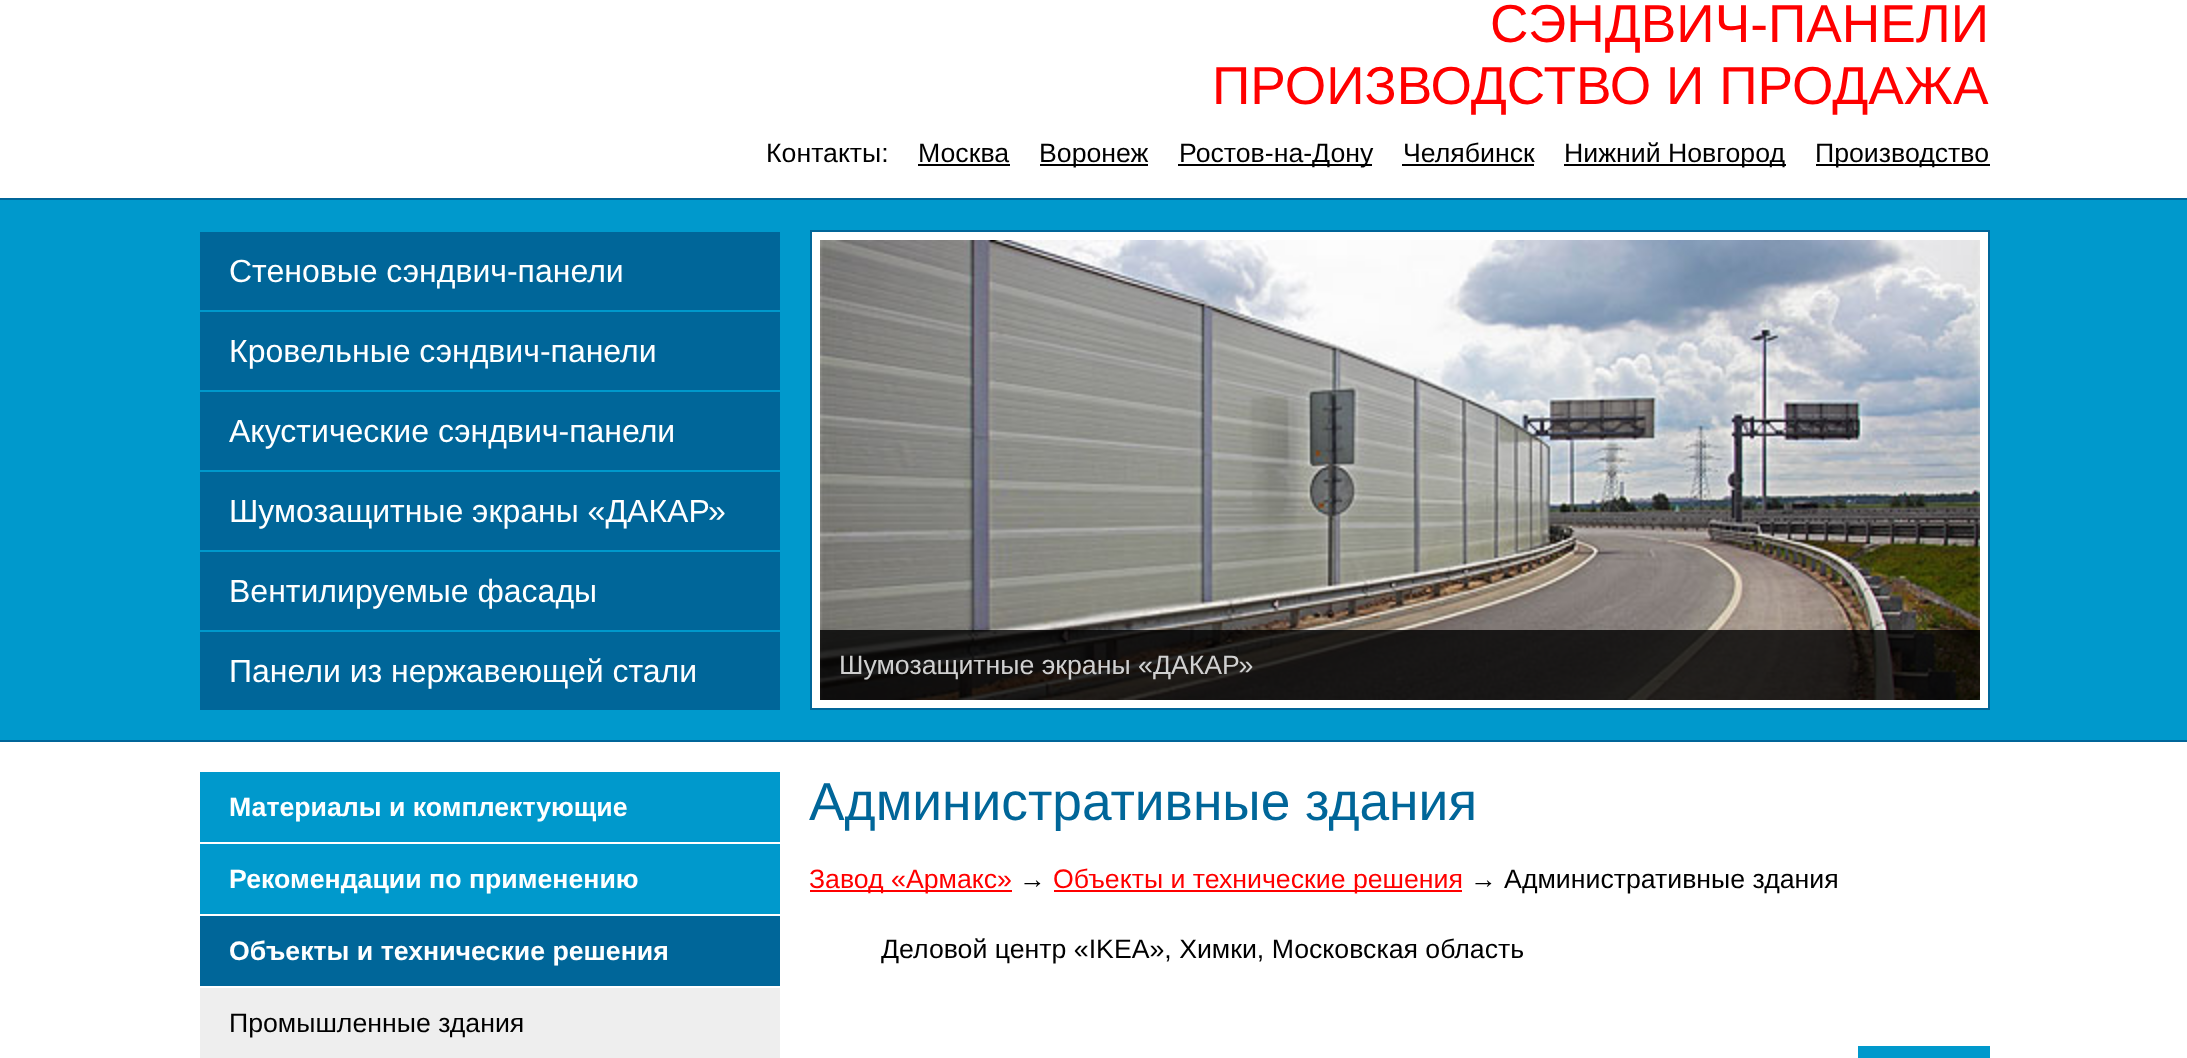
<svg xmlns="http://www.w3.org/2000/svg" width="2187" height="1058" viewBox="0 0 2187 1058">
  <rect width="100%" height="100%" fill="#fff"/>
  <path d="M918 164h92v2H918z" fill="#000"/>
  <path d="M1040 164h108v2H1040z" fill="#000"/>
  <path d="M1178 164h194v2H1178z" fill="#000"/>
  <path d="M1402 164h132v2H1402z" fill="#000"/>
  <path d="M1564 164h222v2H1564z" fill="#000"/>
  <path d="M1816 164h174v2H1816z" fill="#000"/>
  <path d="M0 200h2187v540H0z" fill="#09c"/>
  <path d="M0 198h2187v2H0z" fill="#069"/>
  <path d="M0 740h2187v2H0z" fill="#069"/>
  <path d="M200 232h580v78H200z" fill="#069"/>
  <path d="M200 312h580v78H200z" fill="#069"/>
  <path d="M200 392h580v78H200z" fill="#069"/>
  <path d="M200 472h580v78H200z" fill="#069"/>
  <path d="M200 552h580v78H200z" fill="#069"/>
  <path d="M200 632h580v78H200z" fill="#069"/>
  <path d="M811 231h1178v478H811z" fill="#fff" stroke="#069" stroke-width="2"/>
  <image x="820" y="240" width="1160" height="460" href="img/1.png"/>
  <path d="M820 630h1160v70H820z" fill="#000000cc"/>
  <path d="M200 772h580v70H200z" fill="#09c"/>
  <path d="M200 844h580v70H200z" fill="#09c"/>
  <path d="M200 916h580v70H200z" fill="#069"/>
  <path d="M200 988h580v70H200z" fill="#eee"/>
  <path d="M810 890h202v2H810z" fill="#f00"/>
  <path d="M1054 890h408v2H1054z" fill="#f00"/>
  <path d="M1858 1046h132v12H1858z" fill="#09c"/>
  <g font-family="Liberation Sans" font-size="53.3" fill="#f00">
    <text x="1490" y="42">СЭНДВИЧ-ПАНЕЛИ</text>
    <text x="1212" y="104">ПРОИЗВОДСТВО И ПРОДАЖА</text>
  </g>
  <g font-family="Liberation Sans" font-size="26.7" fill="#000">
    <text x="766" y="162">Контакты:</text>
    <text x="918" y="162">Москва</text>
    <text x="1039" y="162">Воронеж</text>
    <text x="1179" y="162">Ростов-на-Дону</text>
    <text x="1403" y="162">Челябинск</text>
    <text x="1564" y="162">Нижний Новгород</text>
    <text x="1815" y="162">Производство</text>
  </g>
  <g font-family="Liberation Sans" font-size="32" fill="#fff">
    <text x="229" y="282">Стеновые сэндвич-панели</text>
    <text x="229" y="362">Кровельные сэндвич-панели</text>
    <text x="229" y="442">Акустические сэндвич-панели</text>
    <text x="229" y="522">Шумозащитные экраны «ДАКАР»</text>
    <text x="229" y="602">Вентилируемые фасады</text>
    <text x="229" y="682">Панели из нержавеющей стали</text>
  </g>
  <text x="839" y="674" font-family="Liberation Sans" font-size="26.7" fill="#d0d0d0">Шумозащитные экраны «ДАКАР»</text>
  <g font-family="Liberation Sans" font-size="26.7" font-weight="bold" fill="#fff">
    <text x="229" y="816">Материалы и комплектующие</text>
    <text x="229" y="888">Рекомендации по применению</text>
    <text x="229" y="960">Объекты и технические решения</text>
  </g>
  <text x="229" y="1032" font-family="Liberation Sans" font-size="26.7" fill="#000">Промышленные здания</text>
  <text x="809" y="820" font-family="Liberation Sans" font-size="53.3" fill="#069">Административные здания</text>
  <text x="809" y="888" font-family="Liberation Sans" font-size="26.7" fill="#f00">Завод «Армакс»</text>
  <text x="1019" y="888" font-family="Liberation Sans" font-size="26.7" fill="#000">→</text>
  <text x="1053" y="888" font-family="Liberation Sans" font-size="26.7" fill="#f00">Объекты и технические решения</text>
  <g font-family="Liberation Sans" font-size="26.7" fill="#000">
    <text x="1470" y="888">→ Административные здания</text>
    <text x="881" y="958">Деловой центр «IKEA», Химки, Московская область</text>
  </g>
</svg>
